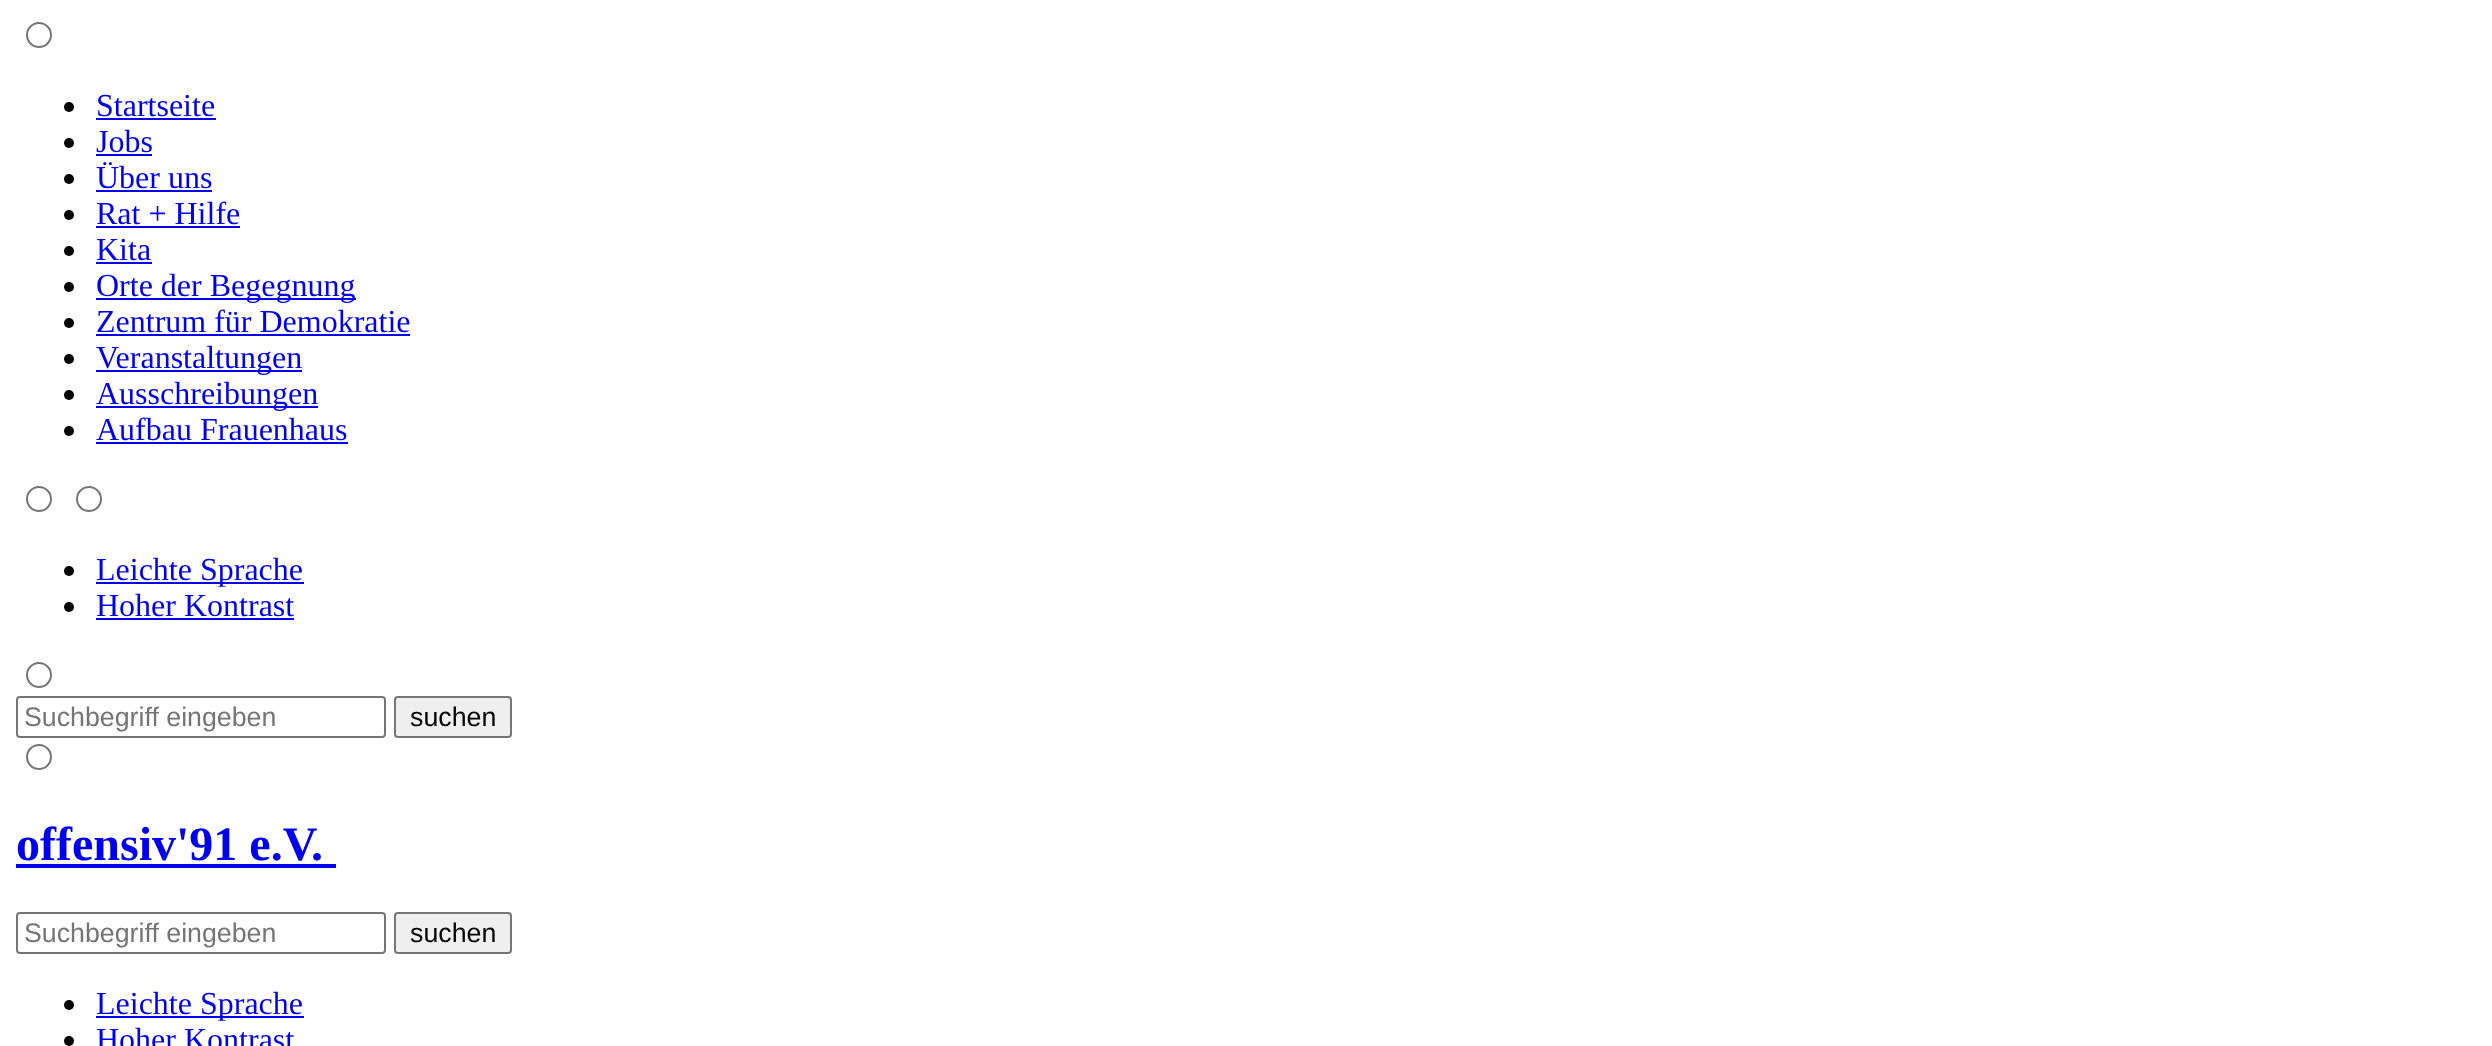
<svg xmlns="http://www.w3.org/2000/svg" width="2492" height="1046" viewBox="0 0 2492 1046">
  <rect width="100%" height="100%" fill="#fff"/>
  <circle cx="39" cy="35" r="12" fill="none" stroke="#767676" stroke-width="2"/>
  <circle cx="69" cy="107" r="5" fill="#000"/>
  <path d="M96 118h120v2H96z" fill="#00e"/>
  <circle cx="69" cy="143" r="5" fill="#000"/>
  <path d="M96 154h56v2H96z" fill="#00e"/>
  <circle cx="69" cy="179" r="5" fill="#000"/>
  <path d="M96 190h116v2H96z" fill="#00e"/>
  <circle cx="69" cy="215" r="5" fill="#000"/>
  <path d="M96 226h144v2H96z" fill="#00e"/>
  <circle cx="69" cy="251" r="5" fill="#000"/>
  <path d="M96 262h56v2H96z" fill="#00e"/>
  <circle cx="69" cy="287" r="5" fill="#000"/>
  <path d="M96 298h260v2H96z" fill="#00e"/>
  <circle cx="69" cy="323" r="5" fill="#000"/>
  <path d="M96 334h314v2H96z" fill="#00e"/>
  <circle cx="69" cy="359" r="5" fill="#000"/>
  <path d="M96 370h206v2H96z" fill="#00e"/>
  <circle cx="69" cy="395" r="5" fill="#000"/>
  <path d="M96 406h222v2H96z" fill="#00e"/>
  <circle cx="69" cy="431" r="5" fill="#000"/>
  <path d="M96 442h252v2H96z" fill="#00e"/>
  <circle cx="39" cy="499" r="12" fill="none" stroke="#767676" stroke-width="2"/>
  <circle cx="89" cy="499" r="12" fill="none" stroke="#767676" stroke-width="2"/>
  <circle cx="69" cy="571" r="5" fill="#000"/>
  <path d="M96 582h208v2H96z" fill="#00e"/>
  <circle cx="69" cy="607" r="5" fill="#000"/>
  <path d="M96 618h198v2H96z" fill="#00e"/>
  <circle cx="39" cy="675" r="12" fill="none" stroke="#767676" stroke-width="2"/>
  <rect x="17" y="697" width="368" height="40" rx="3" fill="none" stroke="#767676" stroke-width="2"/>
  <rect x="395" y="697" width="116" height="40" rx="3" fill="#efefef" stroke="#767676" stroke-width="2"/>
  <circle cx="39" cy="757" r="12" fill="none" stroke="#767676" stroke-width="2"/>
  <path d="M16 864h320v4H16z" fill="#00e"/>
  <rect x="17" y="913" width="368" height="40" rx="3" fill="none" stroke="#767676" stroke-width="2"/>
  <rect x="395" y="913" width="116" height="40" rx="3" fill="#efefef" stroke="#767676" stroke-width="2"/>
  <circle cx="69" cy="1005" r="5" fill="#000"/>
  <path d="M96 1016h208v2H96z" fill="#00e"/>
  <circle cx="69" cy="1041" r="5" fill="#000"/>
  <g font-family="Liberation Serif" font-size="32" fill="#00e">
    <text x="96" y="116">Startseite</text>
    <text x="96" y="152">Jobs</text>
    <text x="96" y="188">Über uns</text>
    <text x="96" y="224">Rat + Hilfe</text>
    <text x="96" y="260">Kita</text>
    <text x="96" y="296">Orte der Begegnung</text>
    <text x="96" y="332">Zentrum für Demokratie</text>
    <text x="96" y="368">Veranstaltungen</text>
    <text x="96" y="404">Ausschreibungen</text>
    <text x="96" y="440">Aufbau Frauenhaus</text>
    <text x="96" y="580">Leichte Sprache</text>
    <text x="96" y="616">Hoher Kontrast</text>
  </g>
  <text x="24" y="726" font-family="Liberation Sans" font-size="26.75" fill="#757575">Suchbegriff eingeben</text>
  <text x="410" y="726" font-family="Liberation Sans" font-size="26.75" fill="#000">suchen</text>
  <text x="16" y="860" font-family="Liberation Serif" font-size="48" font-weight="bold" fill="#00e">offensiv'91 e.V.</text>
  <text x="24" y="942" font-family="Liberation Sans" font-size="26.75" fill="#757575">Suchbegriff eingeben</text>
  <text x="410" y="942" font-family="Liberation Sans" font-size="26.75" fill="#000">suchen</text>
  <g font-family="Liberation Serif" font-size="32" fill="#00e">
    <text x="96" y="1014">Leichte Sprache</text>
    <text x="96" y="1050">Hoher Kontrast</text>
  </g>
</svg>
